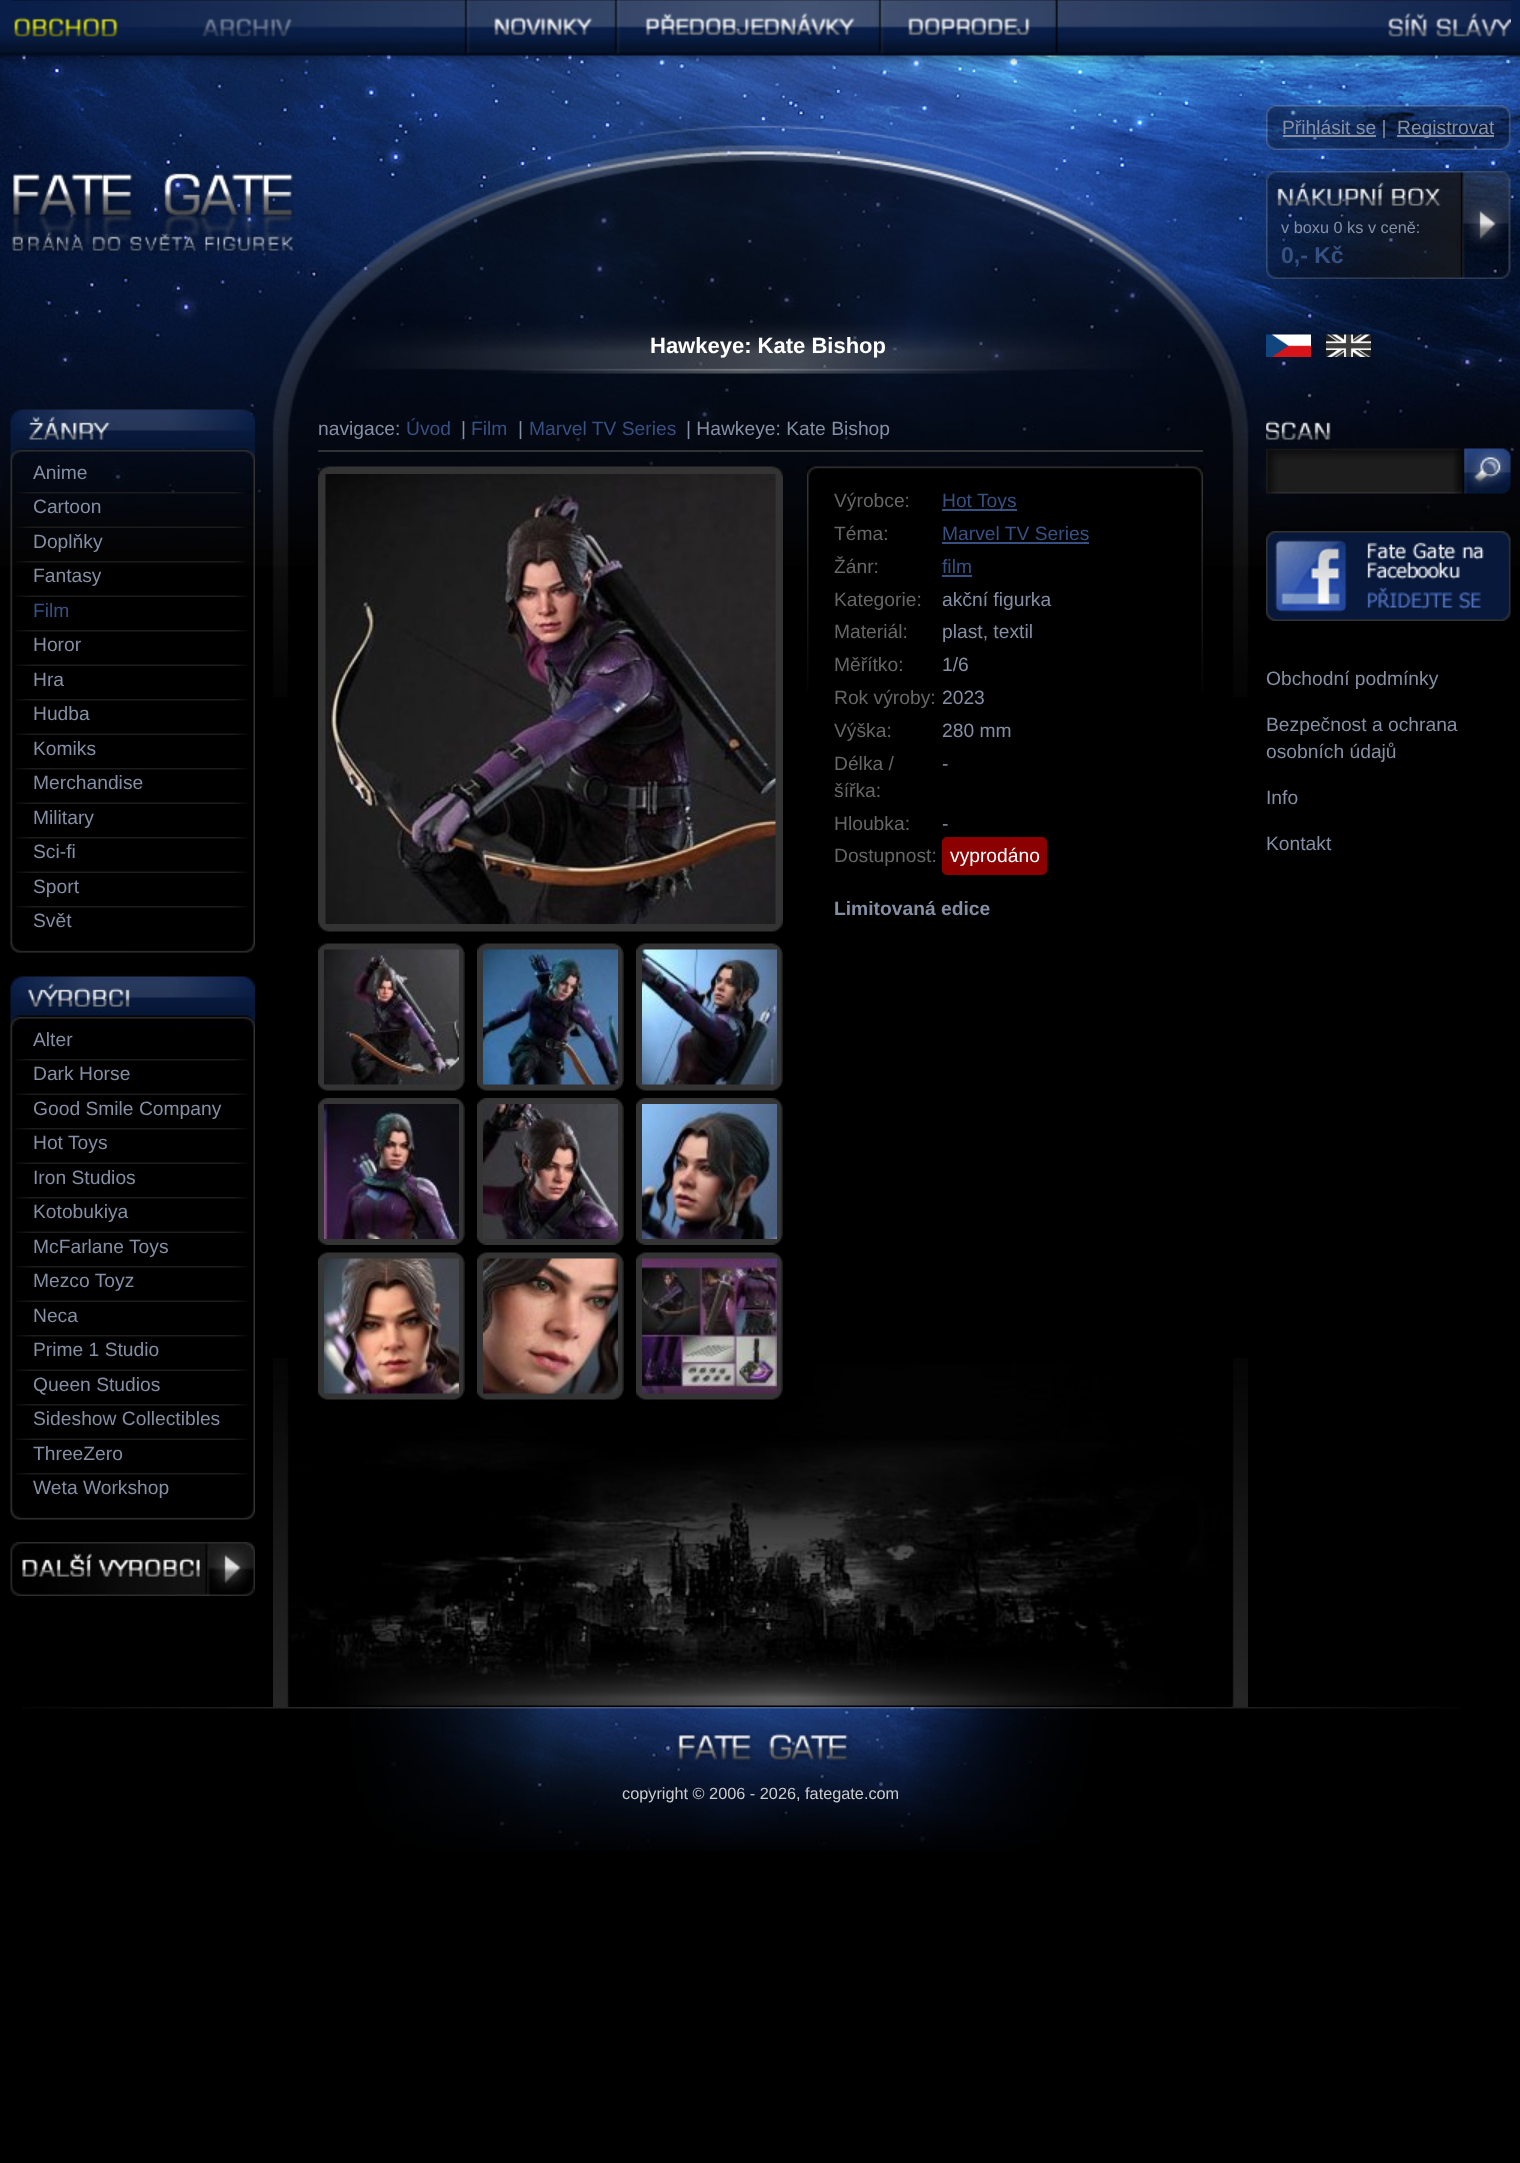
<svg xmlns="http://www.w3.org/2000/svg" width="1520" height="2163" viewBox="0 0 1520 2163">
  <rect width="100%" height="100%" fill="#000"/>
  <image x="0" y="53" width="1520" height="644" href="img/1.png"/>
  <image x="0" y="0" width="1520" height="55" href="img/2.png"/>
  <image x="11" y="0" width="1500" height="54" href="img/3.png"/>
  <image x="11" y="4" width="142" height="50" href="img/4.png"/>
  <image x="155" y="0" width="145" height="54" href="img/5.png"/>
  <path d="M465 20h1v2H465z" fill="#375082"/>
  <image x="464" y="0" width="150" height="54" href="img/6.png"/>
  <path d="M615 20h1v2H615z" fill="#375082"/>
  <image x="614" y="0" width="264" height="54" href="img/7.png"/>
  <path d="M879 20h1v2H879z" fill="#375082"/>
  <image x="878" y="0" width="180" height="54" href="img/8.png"/>
  <image x="1385" y="3" width="126" height="51" href="img/9.png"/>
  <image x="1266" y="105" width="245" height="45" href="img/10.png"/>
  <path d="M1283 135h93v2H1283z" fill="#848fa4"/>
  <path d="M1397 135h97v2H1397z" fill="#848fa4"/>
  <image x="10" y="171" width="284" height="83" href="img/11.png"/>
  <image x="1266" y="171" width="245" height="108" href="img/12.png"/>
  <image x="1461" y="171" width="49" height="108" href="img/13.png"/>
  <image x="1266" y="334" width="45" height="23" href="img/14.png"/>
  <image x="1326" y="334" width="45" height="23" href="img/15.png"/>
  <image x="273" y="1358" width="975" height="349" href="img/16.png"/>
  <image x="10" y="408" width="245" height="51" href="img/17.png"/>
  <image x="10" y="942" width="245" height="11" href="img/18.png"/>
  <image x="10" y="459" width="245" height="483" href="img/19.png"/>
  <image x="15" y="492" width="236" height="2" href="img/20.png"/>
  <image x="16" y="526" width="234" height="2" href="img/21.png"/>
  <image x="16" y="561" width="230" height="2" href="img/22.png"/>
  <image x="15" y="595" width="233" height="2" href="img/23.png"/>
  <image x="15" y="630" width="233" height="2" href="img/24.png"/>
  <image x="15" y="664" width="233" height="2" href="img/23.png"/>
  <image x="15" y="699" width="233" height="2" href="img/24.png"/>
  <image x="15" y="733" width="233" height="2" href="img/23.png"/>
  <image x="15" y="768" width="233" height="2" href="img/24.png"/>
  <image x="15" y="802" width="233" height="2" href="img/23.png"/>
  <image x="15" y="837" width="233" height="2" href="img/24.png"/>
  <image x="15" y="871" width="233" height="2" href="img/23.png"/>
  <image x="15" y="906" width="233" height="2" href="img/24.png"/>
  <image x="10" y="975" width="245" height="51" href="img/25.png"/>
  <image x="10" y="1509" width="245" height="11" href="img/18.png"/>
  <image x="10" y="1026" width="245" height="483" href="img/26.png"/>
  <image x="15" y="1059" width="233" height="2" href="img/24.png"/>
  <image x="15" y="1093" width="233" height="2" href="img/23.png"/>
  <image x="15" y="1128" width="233" height="2" href="img/24.png"/>
  <image x="15" y="1162" width="233" height="2" href="img/23.png"/>
  <image x="15" y="1197" width="233" height="2" href="img/24.png"/>
  <image x="15" y="1231" width="233" height="2" href="img/23.png"/>
  <image x="15" y="1266" width="233" height="2" href="img/24.png"/>
  <image x="15" y="1300" width="233" height="2" href="img/23.png"/>
  <image x="15" y="1335" width="233" height="2" href="img/24.png"/>
  <image x="15" y="1369" width="233" height="2" href="img/23.png"/>
  <image x="15" y="1404" width="233" height="2" href="img/24.png"/>
  <image x="15" y="1438" width="233" height="2" href="img/23.png"/>
  <image x="15" y="1473" width="233" height="2" href="img/24.png"/>
  <image x="10" y="1542" width="245" height="54" href="img/27.png"/>
  <path d="M318 450h885v2H318z" fill="#333"/>
  <image x="318" y="466" width="465" height="466" href="img/28.png"/>
  <image x="325" y="474" width="451" height="450" href="img/29.png"/>
  <image x="318" y="943" width="147" height="148" href="img/30.png"/>
  <image x="324" y="949" width="135" height="136" href="img/31.png"/>
  <image x="477" y="943" width="147" height="148" href="img/30.png"/>
  <image x="483" y="949" width="135" height="136" href="img/32.png"/>
  <image x="636" y="943" width="147" height="148" href="img/33.png"/>
  <image x="642" y="949" width="135" height="136" href="img/34.png"/>
  <image x="318" y="1098" width="147" height="147" href="img/35.png"/>
  <image x="324" y="1104" width="135" height="135" href="img/36.png"/>
  <image x="477" y="1098" width="147" height="147" href="img/35.png"/>
  <image x="483" y="1104" width="135" height="135" href="img/37.png"/>
  <image x="636" y="1098" width="147" height="147" href="img/38.png"/>
  <image x="642" y="1104" width="135" height="135" href="img/39.png"/>
  <image x="318" y="1252" width="147" height="148" href="img/40.png"/>
  <image x="324" y="1258" width="135" height="136" href="img/41.png"/>
  <image x="477" y="1252" width="147" height="148" href="img/42.png"/>
  <image x="483" y="1258" width="135" height="136" href="img/43.png"/>
  <image x="636" y="1252" width="147" height="148" href="img/33.png"/>
  <image x="642" y="1258" width="135" height="136" href="img/44.png"/>
  <image x="807" y="466" width="396" height="225" href="img/45.png"/>
  <path d="M942 509h75v2H942z" fill="#375082"/>
  <path d="M942 542h147v2H942z" fill="#375082"/>
  <path d="M942 575h30v2H942z" fill="#375082"/>
  <rect x="942" y="837" width="105" height="38" rx="5" fill="#8b0000"/>
  <image x="1266" y="448" width="195" height="46" href="img/47.png"/>
  <image x="1266" y="420" width="66" height="29" href="img/46.png"/>
  <image x="1461" y="448" width="50" height="46" href="img/48.png"/>
  <image x="1266" y="531" width="245" height="90" href="img/49.png"/>
  <image x="22" y="1707" width="1440" height="144" href="img/50.png"/>
  <g font-family="Liberation Sans" font-size="19.25" fill="#848fa4">
    <text x="1282" y="134">Přihlásit se |</text>
    <text x="1397" y="134">Registrovat</text>
  </g>
  <text x="1281" y="233" font-family="Liberation Sans" font-size="16.3" fill="#848fa4">v boxu 0 ks v ceně:</text>
  <text x="1281" y="263" font-family="Liberation Sans" font-size="23" font-weight="bold" fill="#375082">0,- Kč</text>
  <g font-family="Liberation Sans" font-size="19.25" fill="#848fa4">
    <text x="33" y="479">Anime</text>
    <text x="33" y="513">Cartoon</text>
    <text x="33" y="548">Doplňky</text>
    <text x="33" y="582">Fantasy</text>
  </g>
  <text x="33" y="617" font-family="Liberation Sans" font-size="19.25" fill="#375082">Film</text>
  <g font-family="Liberation Sans" font-size="19.25" fill="#848fa4">
    <text x="33" y="651">Horor</text>
    <text x="33" y="686">Hra</text>
    <text x="33" y="720">Hudba</text>
    <text x="33" y="755">Komiks</text>
    <text x="33" y="789">Merchandise</text>
    <text x="33" y="824">Military</text>
    <text x="33" y="858">Sci-fi</text>
    <text x="33" y="893">Sport</text>
    <text x="33" y="927">Svět</text>
    <text x="33" y="1046">Alter</text>
    <text x="33" y="1080">Dark Horse</text>
    <text x="33" y="1115">Good Smile Company</text>
    <text x="33" y="1149">Hot Toys</text>
    <text x="33" y="1184">Iron Studios</text>
    <text x="33" y="1218">Kotobukiya</text>
    <text x="33" y="1253">McFarlane Toys</text>
    <text x="33" y="1287">Mezco Toyz</text>
    <text x="33" y="1322">Neca</text>
    <text x="33" y="1356">Prime 1 Studio</text>
    <text x="33" y="1391">Queen Studios</text>
    <text x="33" y="1425">Sideshow Collectibles</text>
    <text x="33" y="1460">ThreeZero</text>
    <text x="33" y="1494">Weta Workshop</text>
  </g>
  <text x="650" y="353" font-family="Liberation Sans" font-size="22" font-weight="bold" fill="#fff">Hawkeye: Kate Bishop</text>
  <text x="318" y="435" font-family="Liberation Sans" font-size="19.25" fill="#848fa4">navigace:</text>
  <text x="406" y="435" font-family="Liberation Sans" font-size="19.25" fill="#375082">Úvod</text>
  <text x="461" y="435" font-family="Liberation Sans" font-size="19.25" fill="#848fa4">|</text>
  <text x="471" y="435" font-family="Liberation Sans" font-size="19.25" fill="#375082">Film</text>
  <text x="518" y="435" font-family="Liberation Sans" font-size="19.25" fill="#848fa4">|</text>
  <text x="529" y="435" font-family="Liberation Sans" font-size="19.25" fill="#375082">Marvel TV Series</text>
  <text x="686" y="435" font-family="Liberation Sans" font-size="19.25" fill="#848fa4">| Hawkeye: Kate Bishop</text>
  <text x="834" y="507" font-family="Liberation Sans" font-size="19.25" fill="#666">Výrobce:</text>
  <text x="942" y="507" font-family="Liberation Sans" font-size="19.25" fill="#375082">Hot Toys</text>
  <text x="834" y="540" font-family="Liberation Sans" font-size="19.25" fill="#666">Téma:</text>
  <text x="942" y="540" font-family="Liberation Sans" font-size="19.25" fill="#375082">Marvel TV Series</text>
  <text x="834" y="573" font-family="Liberation Sans" font-size="19.25" fill="#666">Žánr:</text>
  <text x="942" y="573" font-family="Liberation Sans" font-size="19.25" fill="#375082">film</text>
  <text x="834" y="606" font-family="Liberation Sans" font-size="19.25" fill="#666">Kategorie:</text>
  <text x="942" y="606" font-family="Liberation Sans" font-size="19.25" fill="#848fa4">akční figurka</text>
  <text x="834" y="638" font-family="Liberation Sans" font-size="19.25" fill="#666">Materiál:</text>
  <text x="942" y="638" font-family="Liberation Sans" font-size="19.25" fill="#848fa4">plast, textil</text>
  <text x="834" y="671" font-family="Liberation Sans" font-size="19.25" fill="#666">Měřítko:</text>
  <text x="942" y="671" font-family="Liberation Sans" font-size="19.25" fill="#848fa4">1/6</text>
  <text x="834" y="704" font-family="Liberation Sans" font-size="19.25" fill="#666">Rok výroby:</text>
  <text x="942" y="704" font-family="Liberation Sans" font-size="19.25" fill="#848fa4">2023</text>
  <text x="834" y="737" font-family="Liberation Sans" font-size="19.25" fill="#666">Výška:</text>
  <text x="942" y="737" font-family="Liberation Sans" font-size="19.25" fill="#848fa4">280 mm</text>
  <g font-family="Liberation Sans" font-size="19.25" fill="#666">
    <text x="834" y="770">Délka /</text>
    <text x="834" y="797">šířka:</text>
  </g>
  <text x="942" y="770" font-family="Liberation Sans" font-size="19.25" fill="#848fa4">-</text>
  <text x="834" y="830" font-family="Liberation Sans" font-size="19.25" fill="#666">Hloubka:</text>
  <text x="942" y="830" font-family="Liberation Sans" font-size="19.25" fill="#848fa4">-</text>
  <text x="834" y="862" font-family="Liberation Sans" font-size="19.25" fill="#666">Dostupnost:</text>
  <text x="950" y="862" font-family="Liberation Sans" font-size="19.25" fill="#fff">vyprodáno</text>
  <text x="834" y="915" font-family="Liberation Sans" font-size="19.25" font-weight="bold" fill="#848fa4">Limitovaná edice</text>
  <g font-family="Liberation Sans" font-size="19.25" fill="#848fa4">
    <text x="1266" y="685">Obchodní podmínky</text>
    <text x="1266" y="731">Bezpečnost a ochrana</text>
    <text x="1266" y="758">osobních údajů</text>
    <text x="1266" y="804">Info</text>
    <text x="1266" y="850">Kontakt</text>
  </g>
  <text x="622" y="1799" font-family="Liberation Sans" font-size="16.3" fill="#ccc">copyright © 2006 - 2026, fategate.com</text>
</svg>
